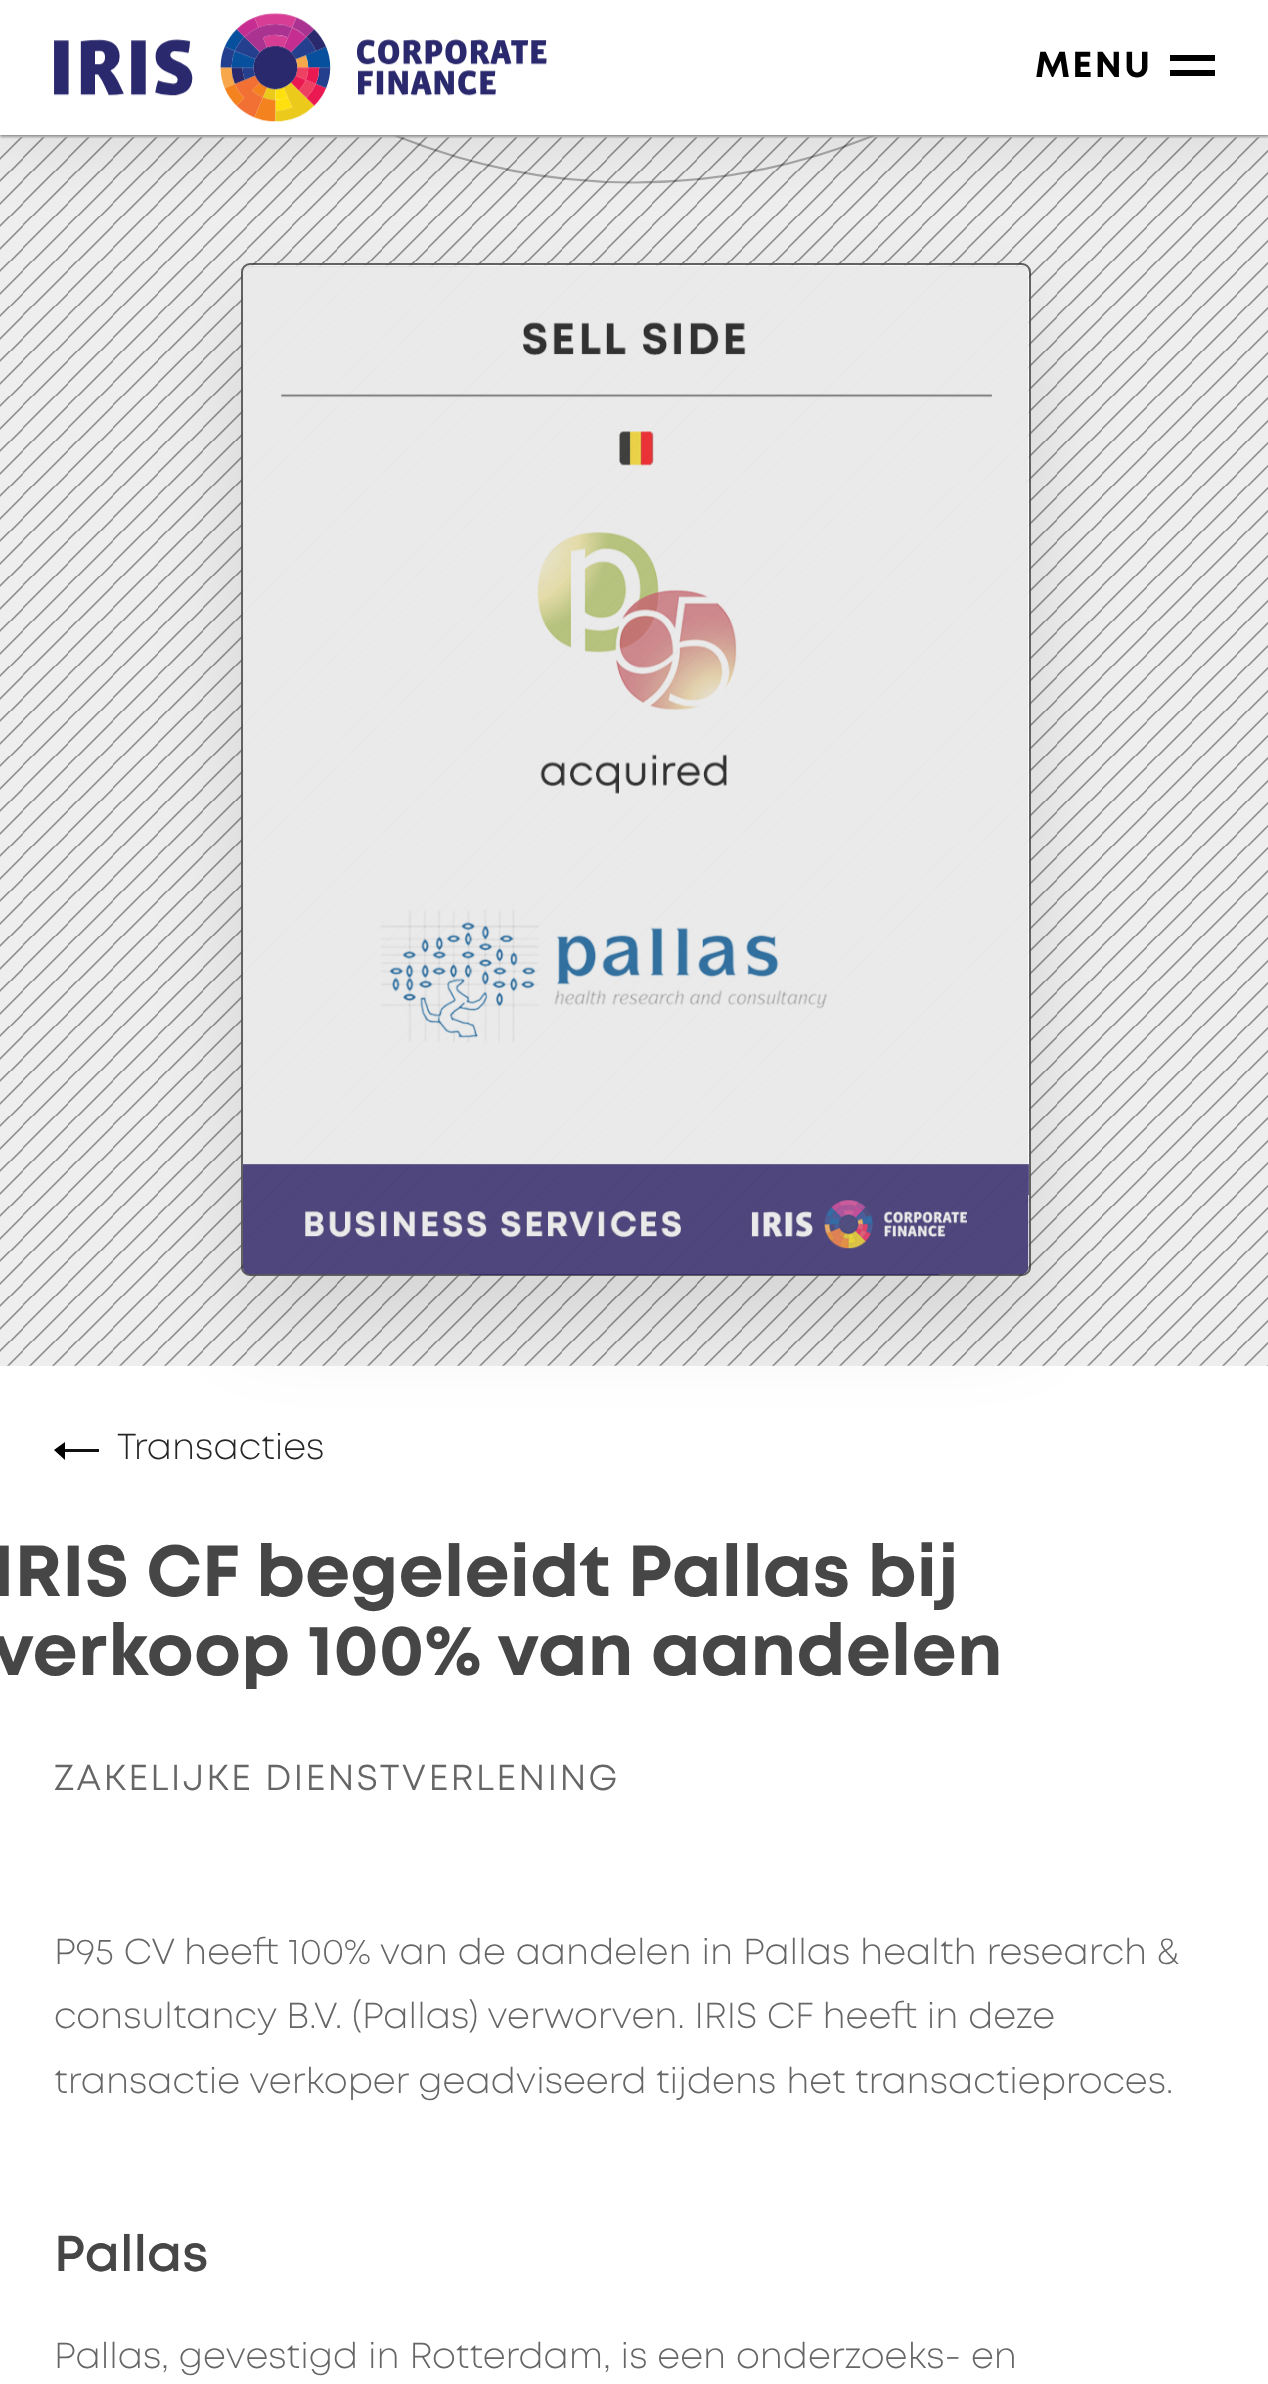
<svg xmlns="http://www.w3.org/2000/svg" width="1268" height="2384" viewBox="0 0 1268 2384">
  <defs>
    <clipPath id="clip1"><path d="M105 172H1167V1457H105ZM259 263H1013C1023 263 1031 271 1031 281V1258C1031 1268 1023 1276 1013 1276H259C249 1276 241 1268 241 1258V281C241 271 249 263 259 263Z" clip-rule="evenodd"/></clipPath>
  </defs>
  <rect width="100%" height="100%" fill="#fff"/>
  <path d="M0 137h1268v1229H0z" fill="#eee"/>
  <image x="0" y="137" width="1268" height="1229" href="img/2.png"/>
  <circle cx="634.5" cy="-450" r="632.5" fill="none" stroke="#0000004d" stroke-width="2.2"/>
  <path d="M0 2h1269v135H0z" fill="#999" filter="blur(1px)"/>
  <path d="M0 14h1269v135H0z" fill="#00000014" filter="blur(34px)"/>
  <path d="M0 0h1268v135H0z" fill="#fff"/>
  <image x="54" y="13" width="493" height="109" href="img/1.png"/>
  <path d="M1170 55h45v6H1170z" fill="#000"/>
  <path d="M1170 70h45v6H1170z" fill="#000"/>
  <g clip-path="url(#clip1)">
    <rect x="241" y="308" width="790" height="1013" rx="18" fill="#0000001c" filter="blur(45px)"/>
  </g>
  <rect x="241" y="263" width="790" height="1013" rx="18" fill="#ffffffb8"/>
  <rect x="242" y="264" width="788" height="1011" rx="8" fill="none" stroke="#272727b8" stroke-width="2"/>
  <rect x="243" y="266" width="785" height="1008" rx="7" fill="#999999b8"/>
  <image x="243" y="266" width="786" height="1009" href="img/3.png"/>
  <path d="M65 1449h34v3H65z" fill="#111"/>
  <path d="M65 1442V1460L54 1450Z" fill="#000"/>
  <text x="1035" y="77" font-family="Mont" font-size="36" font-weight="bold" letter-spacing="2.25" fill="#000">MENU</text>
  <text x="117" y="1459" font-family="Mont" font-size="36" font-weight="300" fill="#262626">Transacties</text>
  <g font-family="Mont" font-size="72" font-weight="bold" fill="#464646">
    <text x="-8" y="1596">IRIS CF begeleidt Pallas bij</text>
    <text x="-8" y="1675">verkoop 100% van aandelen</text>
  </g>
  <text x="54" y="1790" font-family="Mont" font-size="36" letter-spacing="2.25" fill="#666">ZAKELIJKE DIENSTVERLENING</text>
  <g font-family="Mont" font-size="36" font-weight="300" fill="#666">
    <text x="54" y="1964">P95 CV heeft 100% van de aandelen in Pallas health research &amp;</text>
    <text x="54" y="2028">consultancy B.V. (Pallas) verworven. IRIS CF heeft in deze</text>
    <text x="54" y="2093">transactie verkoper geadviseerd tijdens het transactieproces.</text>
  </g>
  <text x="54" y="2271" font-family="Mont" font-size="50.5" font-weight="600" fill="#464646">Pallas</text>
  <text x="54" y="2368" font-family="Mont" font-size="36" font-weight="300" fill="#666">Pallas, gevestigd in Rotterdam, is een onderzoeks- en</text>
</svg>
